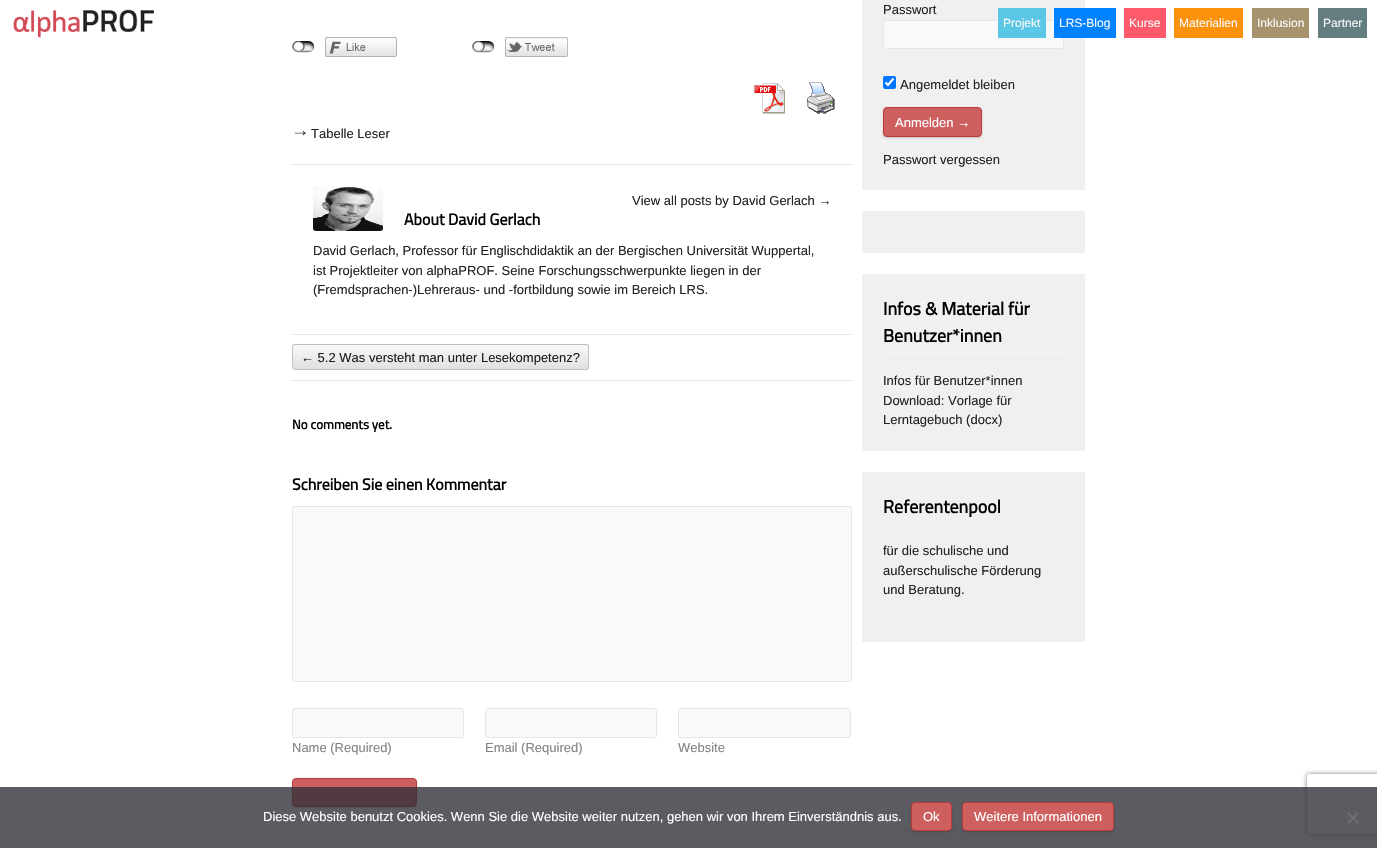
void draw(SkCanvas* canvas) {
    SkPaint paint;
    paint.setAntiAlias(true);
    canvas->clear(0xFFFFFFFF);
    canvas->drawImageRect(SkImages::DeferredFromEncodedData(SkData::MakeFromFileName("img1.png")), SkRect::MakeXYWH(292, 41, 23, 12), SkSamplingOptions());
    canvas->drawImageRect(SkImages::DeferredFromEncodedData(SkData::MakeFromFileName("img2.png")), SkRect::MakeXYWH(325, 37, 72, 20), SkSamplingOptions());
    canvas->drawImageRect(SkImages::DeferredFromEncodedData(SkData::MakeFromFileName("img1.png")), SkRect::MakeXYWH(472, 41, 23, 12), SkSamplingOptions());
    canvas->drawImageRect(SkImages::DeferredFromEncodedData(SkData::MakeFromFileName("img3.png")), SkRect::MakeXYWH(505, 37, 63, 20), SkSamplingOptions());
    canvas->drawImageRect(SkImages::DeferredFromEncodedData(SkData::MakeFromFileName("img4.png")), SkRect::MakeXYWH(754, 83, 31, 31), SkSamplingOptions());
    canvas->drawImageRect(SkImages::DeferredFromEncodedData(SkData::MakeFromFileName("img5.png")), SkRect::MakeXYWH(807, 82, 28, 32), SkSamplingOptions());
    canvas->drawImageRect(SkImages::DeferredFromEncodedData(SkData::MakeFromFileName("img6.png")), SkRect::MakeXYWH(294, 130, 13, 6), SkSamplingOptions());
    SkFont font1(fontMgr->matchFamilyStyle("Liberation Sans", SkFontStyle::Normal()), 13);
    font1.setSubpixel(true);
    paint.setColor(0xFF222222);
    canvas->drawString("Tabelle Leser", 311, 138, font1, paint);
    paint.setColor(0xFFE6E6E6);
    canvas->drawRect(SkRect::MakeXYWH(292, 164, 560, 1), paint);
    canvas->drawImageRect(SkImages::DeferredFromEncodedData(SkData::MakeFromFileName("img7.png")), SkRect::MakeXYWH(313, 186, 70, 45), SkSamplingOptions());
    paint.setColor(0xFF222222);
    canvas->drawString("View all posts by David Gerlach →", 632, 205, font1, paint);
    SkFont font2(fontMgr->matchFamilyStyle("Titillium Web", SkFontStyle::Bold()), 16);
    font2.setSubpixel(true);
    paint.setColor(0xFF020202);
    canvas->drawString("About David Gerlach", 404, 225, font2, paint);
    paint.setColor(0xFF222222);
    canvas->drawString("David Gerlach, Professor für Englischdidaktik an der Bergischen Universität Wuppertal,", 313, 255, font1, paint);
    canvas->drawString("ist Projektleiter von alphaPROF. Seine Forschungsschwerpunkte liegen in der", 313, 275, font1, paint);
    canvas->drawString("(Fremdsprachen-)Lehreraus- und -fortbildung sowie im Bereich LRS.", 313, 294, font1, paint);
    paint.setColor(0xFFE6E6E6);
    canvas->drawRect(SkRect::MakeXYWH(292, 334, 560, 1), paint);
    canvas->drawRect(SkRect::MakeXYWH(292, 380, 560, 1), paint);
    {
        const SkColor colors[] = {0xFFF9F9F9, 0xFFE0E0E0};
        const float stops[] = {0, 1};
        const SkPoint ends[] = {{304, 345}, {304, 369}};
        paint.setShader(SkGradientShader::MakeLinear(ends, colors, stops, 2, SkTileMode::kClamp));
        paint.setAlpha(255);
    }
    canvas->drawPath(SkPathBuilder().moveTo(295, 345).lineTo(314, 345).lineTo(314, 369).lineTo(295, 369).cubicTo(294, 369, 293, 368, 293, 367).lineTo(293, 347).cubicTo(293, 346, 294, 345, 295, 345).close().detach(), paint);
    paint.setShader(nullptr);
    paint.setColor(0xFFC0C0C0);
    canvas->drawPath(SkPathBuilder(SkPathFillType::kEvenOdd).moveTo(295, 344).lineTo(314, 344).lineTo(314, 370).lineTo(295, 370).cubicTo(293.5f, 370, 292, 368.5f, 292, 367).lineTo(292, 347).cubicTo(292, 345.5f, 293.5f, 344, 295, 344).close().moveTo(295, 345).lineTo(314, 345).lineTo(314, 369).lineTo(295, 369).cubicTo(294, 369, 293, 368, 293, 367).lineTo(293, 347).cubicTo(293, 346, 294, 345, 295, 345).close().detach(), paint);
    {
        const SkColor colors[] = {0xFFF9F9F9, 0xFFE0E0E0};
        const float stops[] = {0, 1};
        const SkPoint ends[] = {{451, 345}, {451, 369}};
        paint.setShader(SkGradientShader::MakeLinear(ends, colors, stops, 2, SkTileMode::kClamp));
        paint.setAlpha(255);
    }
    canvas->drawPath(SkPathBuilder().moveTo(314, 345).lineTo(586, 345).cubicTo(587, 345, 588, 346, 588, 347).lineTo(588, 367).cubicTo(588, 368, 587, 369, 586, 369).lineTo(314, 369).close().detach(), paint);
    paint.setShader(nullptr);
    paint.setColor(0xFFC0C0C0);
    canvas->drawPath(SkPathBuilder(SkPathFillType::kEvenOdd).moveTo(314, 344).lineTo(586, 344).cubicTo(588, 344, 589, 345, 589, 347).lineTo(589, 367).cubicTo(589, 369, 588, 370, 586, 370).lineTo(314, 370).close().moveTo(314, 345).lineTo(586, 345).cubicTo(587, 345, 588, 346, 588, 347).lineTo(588, 367).cubicTo(588, 368, 587, 369, 586, 369).lineTo(314, 369).close().detach(), paint);
    paint.setColor(0xFF1C1C1C);
    canvas->drawString("← 5.2 Was versteht man unter Lesekompetenz?", 301, 362, font1, paint);
    SkFont font3(fontMgr->matchFamilyStyle("Titillium Web", SkFontStyle::Bold()), 13);
    font3.setSubpixel(true);
    paint.setColor(0xFF020202);
    canvas->drawString("No comments yet.", 292, 429, font3, paint);
    canvas->drawString("Schreiben Sie einen Kommentar", 292, 490, font2, paint);
    paint.setColor(0xFFF9F9F9);
    canvas->drawRoundRect(SkRect::MakeXYWH(292.5f, 506.5f, 559, 175), 2.5f, 2.5f, paint);
    paint.setStyle(SkPaint::kStroke_Style);
    paint.setStrokeWidth(1);
    paint.setColor(0xFFE6E6E6);
    canvas->drawRoundRect(SkRect::MakeXYWH(292.5f, 506.5f, 559, 175), 2.5f, 2.5f, paint);
    paint.setStyle(SkPaint::kFill_Style);
    paint.setColor(0xFFF9F9F9);
    canvas->drawRoundRect(SkRect::MakeXYWH(292.5f, 708.5f, 171, 29), 2.5f, 2.5f, paint);
    paint.setStyle(SkPaint::kStroke_Style);
    paint.setColor(0xFFE6E6E6);
    canvas->drawRoundRect(SkRect::MakeXYWH(292.5f, 708.5f, 171, 29), 2.5f, 2.5f, paint);
    paint.setStyle(SkPaint::kFill_Style);
    paint.setColor(0xFF828282);
    canvas->drawString("Name (Required)", 292, 752, font1, paint);
    paint.setColor(0xFFF9F9F9);
    canvas->drawRoundRect(SkRect::MakeXYWH(485.5f, 708.5f, 171, 29), 2.5f, 2.5f, paint);
    paint.setStyle(SkPaint::kStroke_Style);
    paint.setColor(0xFFE6E6E6);
    canvas->drawRoundRect(SkRect::MakeXYWH(485.5f, 708.5f, 171, 29), 2.5f, 2.5f, paint);
    paint.setStyle(SkPaint::kFill_Style);
    paint.setColor(0xFF828282);
    canvas->drawString("Email (Required)", 485, 752, font1, paint);
    paint.setColor(0xFFF9F9F9);
    canvas->drawRoundRect(SkRect::MakeXYWH(678.5f, 708.5f, 172, 29), 2.5f, 2.5f, paint);
    paint.setStyle(SkPaint::kStroke_Style);
    paint.setColor(0xFFE6E6E6);
    canvas->drawRoundRect(SkRect::MakeXYWH(678.5f, 708.5f, 172, 29), 2.5f, 2.5f, paint);
    paint.setStyle(SkPaint::kFill_Style);
    paint.setColor(0xFF828282);
    canvas->drawString("Website", 678, 752, font1, paint);
    paint.setColor(0x33000000);
    paint.setMaskFilter(SkMaskFilter::MakeBlur(kNormal_SkBlurStyle, 1));
    canvas->drawRoundRect(SkRect::MakeXYWH(292, 779, 125, 29), 4, 4, paint);
    paint.setMaskFilter(nullptr);
    paint.setColor(0xFFCD5F5F);
    canvas->drawRoundRect(SkRect::MakeXYWH(292.5f, 778.5f, 124, 28), 3.5f, 3.5f, paint);
    paint.setStyle(SkPaint::kStroke_Style);
    paint.setColor(0xFFBE3B3B);
    canvas->drawRoundRect(SkRect::MakeXYWH(292.5f, 778.5f, 124, 28), 3.5f, 3.5f, paint);
    paint.setStyle(SkPaint::kFill_Style);
    paint.setColor(0xFFF0F0F0);
    canvas->drawRect(SkRect::MakeXYWH(862, 0, 223, 190), paint);
    paint.setColor(0xFF222222);
    canvas->drawString("Passwort", 883, 14, font1, paint);
    paint.setColor(0xFFF9F9F9);
    canvas->drawRoundRect(SkRect::MakeXYWH(883.5f, 20.5f, 180, 28), 2.5f, 2.5f, paint);
    paint.setStyle(SkPaint::kStroke_Style);
    paint.setColor(0xFFE6E6E6);
    canvas->drawRoundRect(SkRect::MakeXYWH(883.5f, 20.5f, 180, 28), 2.5f, 2.5f, paint);
    paint.setStyle(SkPaint::kFill_Style);
    paint.setColor(0xFF0075FF);
    canvas->drawRoundRect(SkRect::MakeXYWH(883, 76, 13, 13), 2, 2, paint);
    paint.setStyle(SkPaint::kStroke_Style);
    paint.setStrokeWidth(2.1f);
    paint.setColor(0xFFFFFFFF);
    canvas->drawPath(SkPathBuilder().moveTo(885.5f, 82.5f).lineTo(888, 85).lineTo(893.5f, 78.5f).detach(), paint);
    paint.setStyle(SkPaint::kFill_Style);
    paint.setColor(0xFF222222);
    canvas->drawString("Angemeldet bleiben", 900, 89, font1, paint);
    paint.setColor(0x33000000);
    paint.setMaskFilter(SkMaskFilter::MakeBlur(kNormal_SkBlurStyle, 1));
    canvas->drawRoundRect(SkRect::MakeXYWH(883, 108, 99, 30), 4, 4, paint);
    paint.setMaskFilter(nullptr);
    paint.setColor(0xFFCD5F5F);
    canvas->drawRoundRect(SkRect::MakeXYWH(883.5f, 107.5f, 98, 29), 3.5f, 3.5f, paint);
    paint.setStyle(SkPaint::kStroke_Style);
    paint.setStrokeWidth(1);
    paint.setColor(0xFFBE3B3B);
    canvas->drawRoundRect(SkRect::MakeXYWH(883.5f, 107.5f, 98, 29), 3.5f, 3.5f, paint);
    paint.setStyle(SkPaint::kFill_Style);
    paint.setColor(0xFFFFFFFF);
    canvas->drawString("Anmelden →", 895, 127, font1, paint);
    paint.setColor(0xFF222222);
    canvas->drawString("Passwort vergessen", 883, 164, font1, paint);
    paint.setColor(0xFFF0F0F0);
    canvas->drawRect(SkRect::MakeXYWH(862, 211, 223, 42), paint);
    canvas->drawRect(SkRect::MakeXYWH(862, 274, 223, 177), paint);
    paint.setStyle(SkPaint::kStroke_Style);
    paint.setColor(0xFFE6E6E6);
    paint.setPathEffect(SkDashPathEffect::Make({{1, 1}}, 0));
    canvas->drawPath(SkPathBuilder().moveTo(883, 359.5f).lineTo(1064, 359.5f).detach(), paint);
    paint.setPathEffect(nullptr);
    SkFont font4(fontMgr->matchFamilyStyle("Titillium Web", SkFontStyle::Bold()), 18);
    font4.setSubpixel(true);
    paint.setStyle(SkPaint::kFill_Style);
    paint.setColor(0xFF020202);
    canvas->drawString("Infos & Material für", 883, 315, font4, paint);
    canvas->drawString("Benutzer*innen", 883, 342, font4, paint);
    paint.setColor(0xFF222222);
    canvas->drawString("Infos für Benutzer*innen", 883, 385, font1, paint);
    canvas->drawString("Download: Vorlage für", 883, 405, font1, paint);
    canvas->drawString("Lerntagebuch (docx)", 883, 424, font1, paint);
    paint.setColor(0xFFF0F0F0);
    canvas->drawRect(SkRect::MakeXYWH(862, 472, 223, 170), paint);
    paint.setStyle(SkPaint::kStroke_Style);
    paint.setColor(0xFFE6E6E6);
    paint.setPathEffect(SkDashPathEffect::Make({{1, 1}}, 0));
    canvas->drawPath(SkPathBuilder().moveTo(883, 529.5f).lineTo(1064, 529.5f).detach(), paint);
    paint.setPathEffect(nullptr);
    paint.setStyle(SkPaint::kFill_Style);
    paint.setColor(0xFF020202);
    canvas->drawString("Referentenpool", 883, 513, font4, paint);
    paint.setColor(0xFF222222);
    canvas->drawString("für die schulische und", 883, 555, font1, paint);
    canvas->drawString("außerschulische Förderung", 883, 575, font1, paint);
    canvas->drawString("und Beratung.", 883, 594, font1, paint);
    paint.setColor(0xFFF9F9F9);
    canvas->drawRect(SkRect::MakeXYWH(0, 828, 1377, 20), paint);
    paint.setStyle(SkPaint::kStroke_Style);
    paint.setColor(0xFFE6E6E6);
    paint.setPathEffect(SkDashPathEffect::Make({{1, 1}}, 0));
    canvas->drawPath(SkPathBuilder().moveTo(0, 828.5f).lineTo(1377, 828.5f).detach(), paint);
    paint.setPathEffect(nullptr);
    canvas->drawImageRect(SkImages::DeferredFromEncodedData(SkData::MakeFromFileName("img8.png")), SkRect::MakeXYWH(13, 9, 141, 29), SkSamplingOptions());
    paint.setStyle(SkPaint::kFill_Style);
    paint.setColor(0xFF5AC7E6);
    canvas->drawRect(SkRect::MakeXYWH(998, 8, 48, 30), paint);
    SkFont font5(fontMgr->matchFamilyStyle("Liberation Sans", SkFontStyle::Normal()), 12);
    font5.setSubpixel(true);
    paint.setColor(0xFFF9F9F9);
    canvas->drawString("Projekt", 1003, 27, font5, paint);
    paint.setColor(0xFF0081FF);
    canvas->drawRect(SkRect::MakeXYWH(1054, 8, 62, 30), paint);
    paint.setColor(0xFFF9F9F9);
    canvas->drawString("LRS-Blog", 1059, 27, font5, paint);
    paint.setColor(0xFFFF5A6A);
    canvas->drawRect(SkRect::MakeXYWH(1124, 8, 42, 30), paint);
    paint.setColor(0xFFF9F9F9);
    canvas->drawString("Kurse", 1129, 27, font5, paint);
    paint.setColor(0xFFFC920B);
    canvas->drawRect(SkRect::MakeXYWH(1174, 8, 69, 30), paint);
    paint.setColor(0xFFF9F9F9);
    canvas->drawString("Materialien", 1179, 27, font5, paint);
    paint.setColor(0xFFA6926D);
    canvas->drawRect(SkRect::MakeXYWH(1252, 8, 57, 30), paint);
    paint.setColor(0xFFF9F9F9);
    canvas->drawString("Inklusion", 1257, 27, font5, paint);
    paint.setColor(0xFF647E7F);
    canvas->drawRect(SkRect::MakeXYWH(1318, 8, 49, 30), paint);
    paint.setColor(0xFFF9F9F9);
    canvas->drawString("Partner", 1323, 27, font5, paint);
    canvas->save();
    canvas->clipPath(SkPathBuilder(SkPathFillType::kEvenOdd).moveTo(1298, 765).lineTo(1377, 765).lineTo(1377, 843).lineTo(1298, 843).close().moveTo(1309, 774).lineTo(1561, 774).cubicTo(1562, 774, 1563, 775, 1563, 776).lineTo(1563, 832).cubicTo(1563, 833, 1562, 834, 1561, 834).lineTo(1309, 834).cubicTo(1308, 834, 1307, 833, 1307, 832).lineTo(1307, 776).cubicTo(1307, 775, 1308, 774, 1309, 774).close().detach(), true);
    paint.setColor(0xFF808080);
    paint.setMaskFilter(SkMaskFilter::MakeBlur(kNormal_SkBlurStyle, 2.5f));
    canvas->drawRoundRect(SkRect::MakeXYWH(1307, 774, 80, 60), 2, 2, paint);
    paint.setMaskFilter(nullptr);
    canvas->restore();
    paint.setColor(0xCC32323A);
    canvas->drawRect(SkRect::MakeXYWH(0, 787, 1377, 61), paint);
    paint.setColor(0xFFFFFFFF);
    canvas->drawString("Diese Website benutzt Cookies. Wenn Sie die Website weiter nutzen, gehen wir von Ihrem Einverständnis aus.", 263, 821, font1, paint);
    paint.setColor(0x33000000);
    paint.setMaskFilter(SkMaskFilter::MakeBlur(kNormal_SkBlurStyle, 1));
    canvas->drawRoundRect(SkRect::MakeXYWH(911, 803, 41, 29), 4, 4, paint);
    paint.setMaskFilter(nullptr);
    paint.setColor(0xFFCD5F5F);
    canvas->drawRoundRect(SkRect::MakeXYWH(911.5f, 802.5f, 40, 28), 3.5f, 3.5f, paint);
    paint.setStyle(SkPaint::kStroke_Style);
    paint.setColor(0xFFBE3B3B);
    canvas->drawRoundRect(SkRect::MakeXYWH(911.5f, 802.5f, 40, 28), 3.5f, 3.5f, paint);
    paint.setStyle(SkPaint::kFill_Style);
    paint.setColor(0xFFFFFFFF);
    canvas->drawString("Ok", 923, 821, font1, paint);
    paint.setColor(0x33000000);
    paint.setMaskFilter(SkMaskFilter::MakeBlur(kNormal_SkBlurStyle, 1));
    canvas->drawRoundRect(SkRect::MakeXYWH(962, 803, 152, 29), 4, 4, paint);
    paint.setMaskFilter(nullptr);
    paint.setColor(0xFFCD5F5F);
    canvas->drawRoundRect(SkRect::MakeXYWH(962.5f, 802.5f, 151, 28), 3.5f, 3.5f, paint);
    paint.setStyle(SkPaint::kStroke_Style);
    paint.setColor(0xFFBE3B3B);
    canvas->drawRoundRect(SkRect::MakeXYWH(962.5f, 802.5f, 151, 28), 3.5f, 3.5f, paint);
    paint.setStyle(SkPaint::kFill_Style);
    paint.setColor(0xFFFFFFFF);
    canvas->drawString("Weitere Informationen", 974, 821, font1, paint);
    paint.setColor(0xFF6E6E71);
    canvas->drawPath(SkPathBuilder().moveTo(1357.5f, 812).lineTo(1359, 813.5f).lineTo(1348.5f, 824).lineTo(1347, 822.5f).close().detach(), paint);
    canvas->drawPath(SkPathBuilder().moveTo(1347, 813.5f).lineTo(1348.5f, 812).lineTo(1359, 822.5f).lineTo(1357.5f, 824).close().detach(), paint);
}
